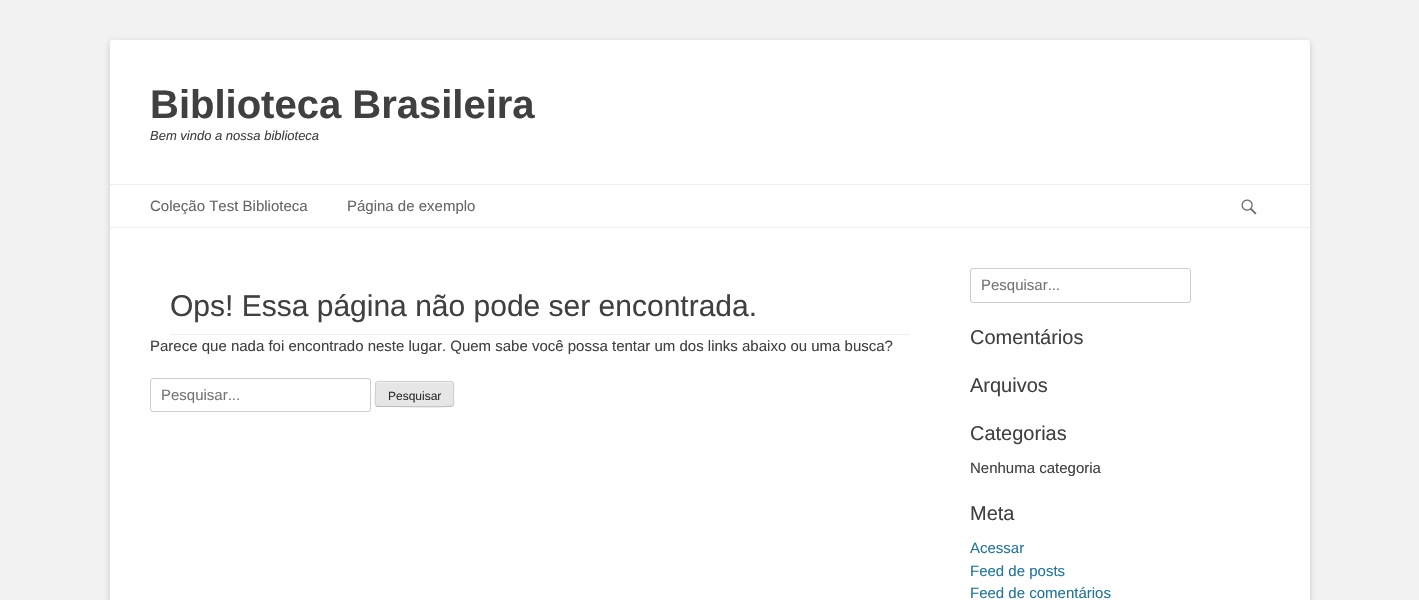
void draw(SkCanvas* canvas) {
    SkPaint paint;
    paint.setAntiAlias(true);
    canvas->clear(0xFFF2F2F2);
    paint.setColor(0x4D646464);
    paint.setMaskFilter(SkMaskFilter::MakeBlur(kNormal_SkBlurStyle, 3));
    canvas->drawRoundRect(SkRect::MakeXYWH(110, 42, 1200, 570), 3, 3, paint);
    paint.setMaskFilter(nullptr);
    paint.setColor(0xFFFFFFFF);
    canvas->drawRoundRect(SkRect::MakeXYWH(110, 40, 1200, 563), 3, 3, paint);
    SkFont font1(fontMgr->matchFamilyStyle("Liberation Sans", SkFontStyle::Bold()), 40);
    font1.setSubpixel(true);
    paint.setColor(0xFF404040);
    canvas->drawString("Biblioteca Brasileira", 150, 118, font1, paint);
    SkFont font2(fontMgr->matchFamilyStyle("Liberation Sans", SkFontStyle::Italic()), 13);
    font2.setSubpixel(true);
    canvas->drawString("Bem vindo a nossa biblioteca", 150, 140, font2, paint);
    paint.setColor(0xFFEEEEEE);
    canvas->drawRect(SkRect::MakeXYWH(110, 184, 1200, 1), paint);
    canvas->drawRect(SkRect::MakeXYWH(110, 227, 1200, 1), paint);
    SkFont font3(fontMgr->matchFamilyStyle("Liberation Sans", SkFontStyle::Normal()), 15);
    font3.setSubpixel(true);
    paint.setColor(0xFF666666);
    canvas->drawString("Coleção Test Biblioteca", 150, 211, font3, paint);
    canvas->drawString("Página de exemplo", 347, 211, font3, paint);
    canvas->drawImageRect(SkImages::DeferredFromEncodedData(SkData::MakeFromFileName("img1.png")), SkRect::MakeXYWH(1241, 199, 16, 16), SkSamplingOptions());
    paint.setColor(0xFFEEEEEE);
    canvas->drawRect(SkRect::MakeXYWH(170, 334, 740, 1), paint);
    SkFont font4(fontMgr->matchFamilyStyle("Liberation Sans", SkFontStyle::Normal()), 30);
    font4.setSubpixel(true);
    paint.setColor(0xFF404040);
    canvas->drawString("Ops! Essa página não pode ser encontrada.", 170, 316, font4, paint);
    canvas->drawString("Parece que nada foi encontrado neste lugar. Quem sabe você possa tentar um dos links abaixo ou uma busca?", 150, 351, font3, paint);
    paint.setStyle(SkPaint::kStroke_Style);
    paint.setStrokeWidth(1);
    paint.setColor(0xFFCCCCCC);
    canvas->drawRoundRect(SkRect::MakeXYWH(150.5f, 378.5f, 220, 33), 2.5f, 2.5f, paint);
    paint.setStyle(SkPaint::kFill_Style);
    paint.setColor(0xFF757575);
    canvas->drawString("Pesquisar...", 161, 400, font3, paint);
    paint.setColor(0xFFE6E6E6);
    canvas->drawRoundRect(SkRect::MakeXYWH(375, 381, 79, 26), 3, 3, paint);
    paint.setColor(0xFFF3F3F3);
    canvas->drawPath(SkPathBuilder().moveTo(378, 383).lineTo(451, 383).cubicTo(452, 383, 453, 384, 453, 385).cubicTo(453, 379, 442, 382, 439, 382).lineTo(390, 382).cubicTo(387, 382, 376, 379, 376, 385).cubicTo(376, 384, 377, 383, 378, 383).close().detach(), paint);
    paint.setStyle(SkPaint::kStroke_Style);
    paint.setColor(0xFFBBBBBB);
    canvas->drawPath(SkPathBuilder().moveTo(453, 406).lineTo(452.5f, 406).cubicTo(450.5f, 407.5f, 397, 406.5f, 390, 406.5f).lineTo(378, 406.5f).lineTo(376, 406).detach(), paint);
    paint.setColor(0xFFCCCCCC);
    canvas->drawPath(SkPathBuilder().moveTo(376, 406).cubicTo(374.5f, 404, 375.5f, 396.5f, 375.5f, 394).cubicTo(375.5f, 378.5f, 373.5f, 381.5f, 390, 381.5f).lineTo(439, 381.5f).cubicTo(457, 381.5f, 453.5f, 379, 453.5f, 397.5f).cubicTo(453.5f, 399.5f, 454.5f, 404, 453, 406).detach(), paint);
    SkFont font5(fontMgr->matchFamilyStyle("Liberation Sans", SkFontStyle::Normal()), 12);
    font5.setSubpixel(true);
    paint.setStyle(SkPaint::kFill_Style);
    paint.setColor(0xFF2E2E2E);
    canvas->drawString("Pesquisar", 388, 400, font5, paint);
    paint.setStyle(SkPaint::kStroke_Style);
    paint.setColor(0xFFCCCCCC);
    canvas->drawRoundRect(SkRect::MakeXYWH(970.5f, 268.5f, 220, 34), 2.5f, 2.5f, paint);
    paint.setStyle(SkPaint::kFill_Style);
    paint.setColor(0xFF757575);
    canvas->drawString("Pesquisar...", 981, 290, font3, paint);
    SkFont font6(fontMgr->matchFamilyStyle("Liberation Sans", SkFontStyle::Normal()), 20);
    font6.setSubpixel(true);
    paint.setColor(0xFF404040);
    canvas->drawString("Comentários", 970, 344, font6, paint);
    canvas->drawString("Arquivos", 970, 392, font6, paint);
    canvas->drawString("Categorias", 970, 440, font6, paint);
    canvas->drawString("Nenhuma categoria", 970, 473, font3, paint);
    canvas->drawString("Meta", 970, 520, font6, paint);
    paint.setColor(0xFF21759B);
    canvas->drawString("Acessar", 970, 553, font3, paint);
    canvas->drawString("Feed de posts", 970, 576, font3, paint);
    canvas->drawString("Feed de comentários", 970, 598, font3, paint);
}
